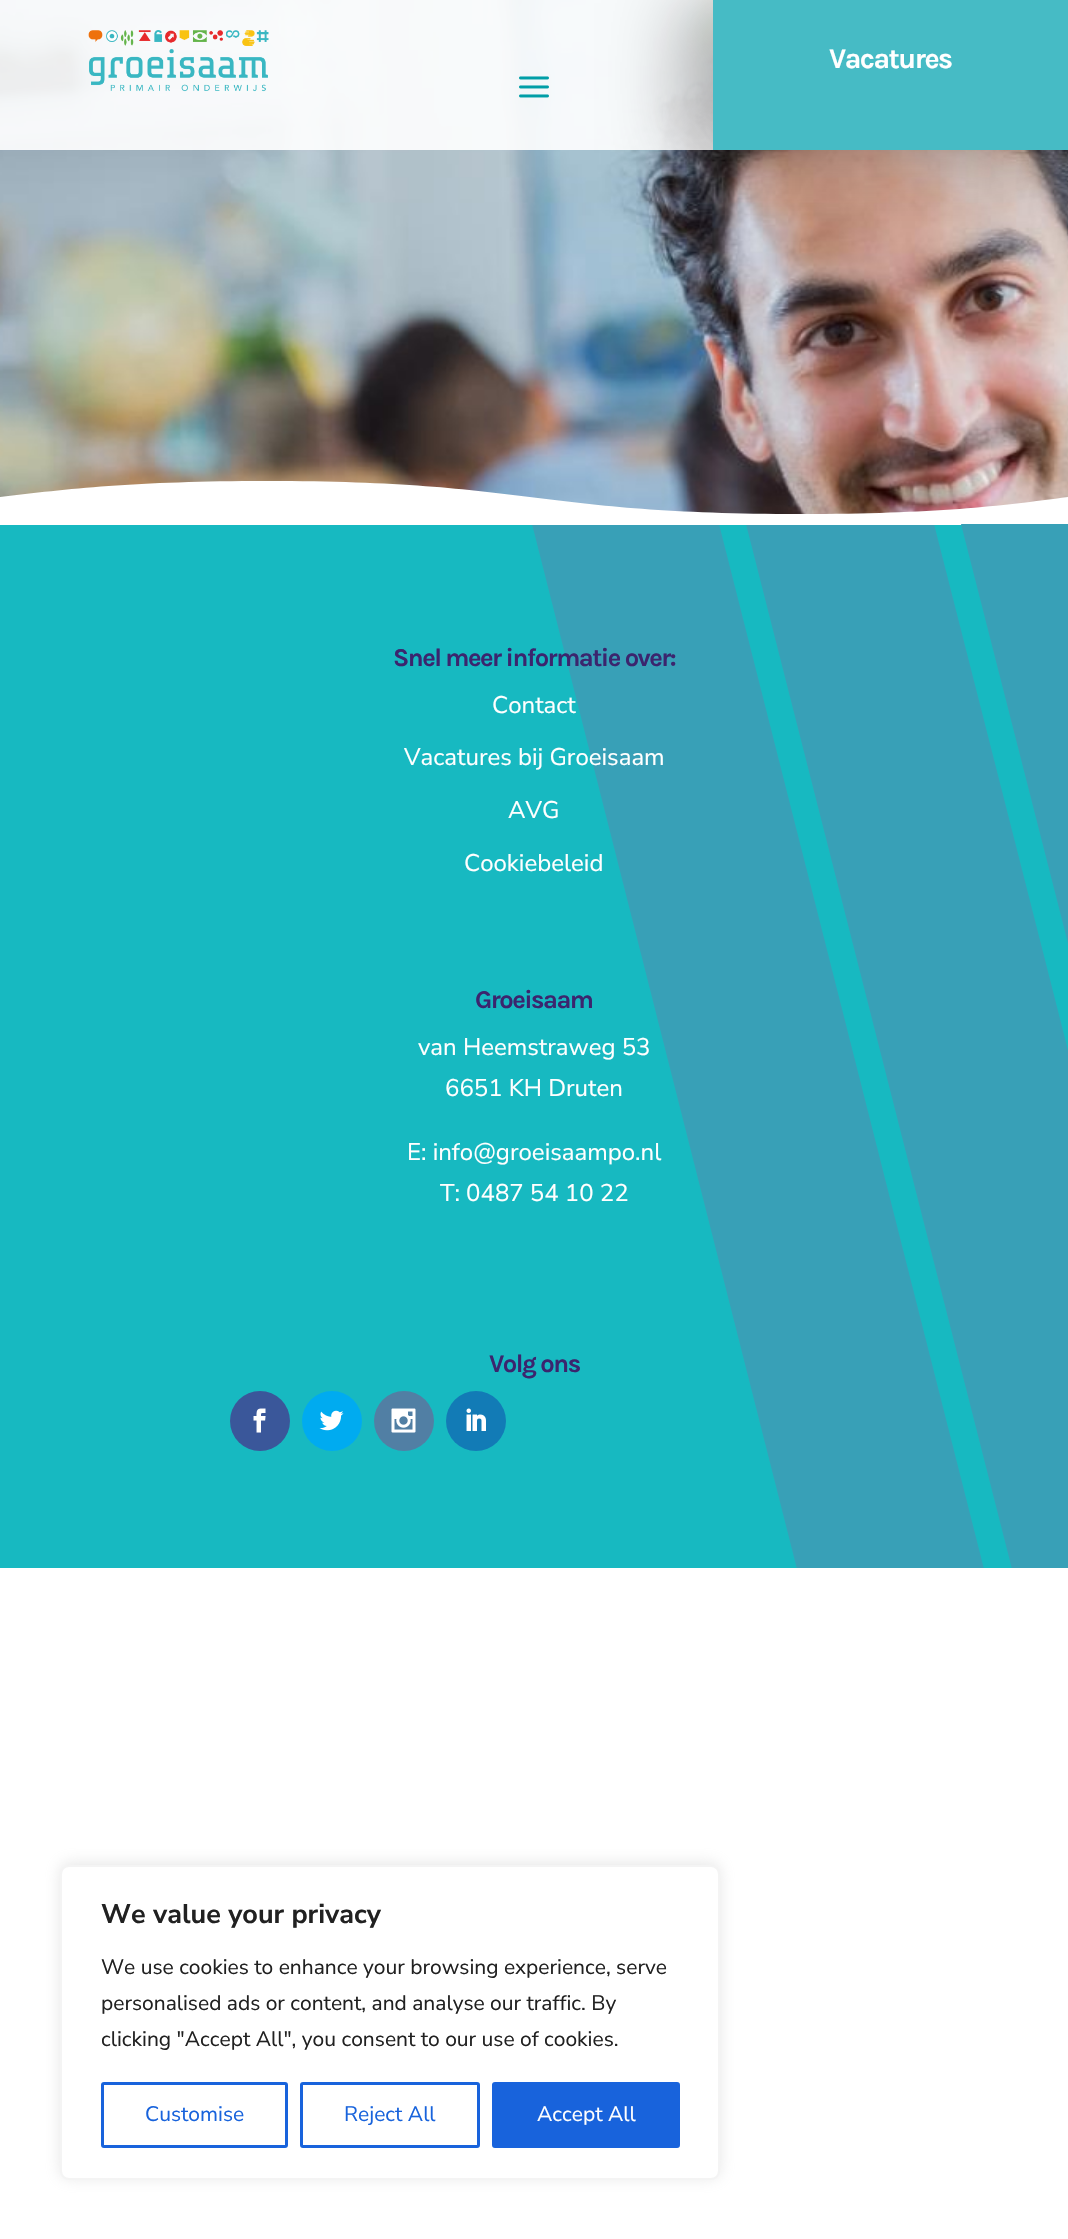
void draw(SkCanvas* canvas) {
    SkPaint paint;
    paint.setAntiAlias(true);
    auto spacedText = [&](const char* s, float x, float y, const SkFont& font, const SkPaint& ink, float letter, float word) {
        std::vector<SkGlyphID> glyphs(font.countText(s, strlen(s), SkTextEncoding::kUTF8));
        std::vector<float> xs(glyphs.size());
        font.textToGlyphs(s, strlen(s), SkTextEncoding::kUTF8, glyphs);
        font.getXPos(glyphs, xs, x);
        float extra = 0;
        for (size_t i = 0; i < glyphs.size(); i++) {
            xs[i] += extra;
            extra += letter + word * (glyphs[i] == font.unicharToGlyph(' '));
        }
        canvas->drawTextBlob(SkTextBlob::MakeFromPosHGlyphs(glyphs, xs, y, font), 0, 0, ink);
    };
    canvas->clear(0xFFFFFFFF);
    canvas->drawImageRect(SkImages::DeferredFromEncodedData(SkData::MakeFromFileName("img1.png")), SkRect::MakeXYWH(0, 0, 1068, 514), SkSamplingOptions());
    paint.setColor(0xE6FFFFFF);
    canvas->drawRect(SkRect::MakeXYWH(0, 0, 713, 150), paint);
    canvas->drawImageRect(SkImages::DeferredFromEncodedData(SkData::MakeFromFileName("img2.png")), SkRect::MakeXYWH(88, 30, 181, 62), SkSamplingOptions());
    paint.setColor(0x4D000000);
    paint.setMaskFilter(SkMaskFilter::MakeBlur(kNormal_SkBlurStyle, 37.5f));
    canvas->drawRect(SkRect::MakeXYWH(683, 3, 355, 150), paint);
    paint.setMaskFilter(nullptr);
    paint.setColor(0xFF46BBC5);
    canvas->drawRect(SkRect::MakeXYWH(713, 0, 355, 150), paint);
    SkFont font1(fontMgr->matchFamilyStyle("Karla", SkFontStyle::Bold()), 28.5f);
    font1.setSubpixel(true);
    paint.setColor(0xFFFFFFFF);
    spacedText("Vacatures", 829, 68, font1, paint, -1.5f, 0);
    canvas->drawImageRect(SkImages::DeferredFromEncodedData(SkData::MakeFromFileName("img3.png")), SkRect::MakeXYWH(519, 76, 30, 22), SkSamplingOptions());
    canvas->drawPath(SkPathBuilder().moveTo(267, 481).cubicTo(534, 481, 534, 514, 801, 514).cubicTo(935, 514, 1001, 506, 1068, 497).lineTo(1068, 525).lineTo(0, 525).lineTo(0, 497).cubicTo(67, 489, 134, 481, 267, 481).close().detach(), paint);
    paint.setColor(0xFF17B9C1);
    canvas->drawRect(SkRect::MakeXYWH(0, 525, 1068, 1043), paint);
    canvas->save();
    canvas->clipRect(SkRect::MakeXYWH(0, 525, 1068, 1043));
    paint.setColor(0xFF38A0B7);
    canvas->drawPath(SkPathBuilder().moveTo(532, 524).lineTo(797, 1569).lineTo(984, 1569).lineTo(719, 524).close().detach(), paint);
    canvas->drawPath(SkPathBuilder().moveTo(746, 524).lineTo(1012, 1569).lineTo(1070, 1569).lineTo(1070, 1058).lineTo(934, 524).close().detach(), paint);
    canvas->restore();
    canvas->drawPath(SkPathBuilder().moveTo(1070, 524).lineTo(961, 524).lineTo(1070, 951).close().detach(), paint);
    SkFont font2(fontMgr->matchFamilyStyle("Karla", SkFontStyle::Bold()), 25.5f);
    font2.setSubpixel(true);
    paint.setColor(0xFF3B256E);
    spacedText("Snel meer informatie over:", 393, 666, font2, paint, -1.5f, 0);
    SkFont font3(fontMgr->matchFamilyStyle("Nunito Sans", SkFontStyle(200, SkFontStyle::kNormal_Width, SkFontStyle::kUpright_Slant)), 24);
    font3.setSubpixel(true);
    paint.setColor(0xFFFFFFFF);
    canvas->drawString("Contact", 492, 713, font3, paint);
    canvas->drawString("Vacatures bij Groeisaam", 404, 765, font3, paint);
    canvas->drawString("AVG", 508, 818, font3, paint);
    canvas->drawString("Cookiebeleid", 464, 871, font3, paint);
    paint.setColor(0xFF3B256E);
    spacedText("Groeisaam", 475, 1008, font2, paint, -1.5f, 0);
    paint.setColor(0xFFFFFFFF);
    canvas->drawString("van Heemstraweg 53", 418, 1055, font3, paint);
    canvas->drawString("6651 KH Druten", 445, 1096, font3, paint);
    canvas->drawString("E: info@groeisaampo.nl", 407, 1160, font3, paint);
    canvas->drawString("T: 0487 54 10 22", 440, 1201, font3, paint);
    paint.setColor(0xFF3B256E);
    spacedText("Volg ons", 489, 1372, font2, paint, -1.5f, 0);
    paint.setColor(0xFF3A579A);
    canvas->drawCircle(260, 1421, 30, paint);
    canvas->drawImageRect(SkImages::DeferredFromEncodedData(SkData::MakeFromFileName("img4.png")), SkRect::MakeXYWH(253, 1408, 13, 25), SkSamplingOptions());
    paint.setColor(0xFF00ABF0);
    canvas->drawCircle(332, 1421, 30, paint);
    canvas->drawImageRect(SkImages::DeferredFromEncodedData(SkData::MakeFromFileName("img5.png")), SkRect::MakeXYWH(319, 1410, 25, 21), SkSamplingOptions());
    paint.setColor(0xFF517FA4);
    canvas->drawCircle(404, 1421, 30, paint);
    canvas->drawImageRect(SkImages::DeferredFromEncodedData(SkData::MakeFromFileName("img6.png")), SkRect::MakeXYWH(391, 1408, 25, 25), SkSamplingOptions());
    paint.setColor(0xFF127BB6);
    canvas->drawCircle(476, 1421, 30, paint);
    canvas->drawImageRect(SkImages::DeferredFromEncodedData(SkData::MakeFromFileName("img7.png")), SkRect::MakeXYWH(466, 1408, 20, 23), SkSamplingOptions());
    paint.setColor(0x4DACABAB);
    paint.setMaskFilter(SkMaskFilter::MakeBlur(kNormal_SkBlurStyle, 7.5f));
    canvas->drawRoundRect(SkRect::MakeXYWH(60, 1863, 660, 315), 9, 9, paint);
    paint.setMaskFilter(nullptr);
    paint.setColor(0xFFFFFFFF);
    canvas->drawRoundRect(SkRect::MakeXYWH(61, 1866, 658, 313), 8, 8, paint);
    paint.setStyle(SkPaint::kStroke_Style);
    paint.setStrokeWidth(2);
    paint.setColor(0xFFF4F4F4);
    canvas->drawRoundRect(SkRect::MakeXYWH(61, 1866, 658, 313), 8, 8, paint);
    SkFont font4(fontMgr->matchFamilyStyle("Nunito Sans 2", SkFontStyle(200, SkFontStyle::kNormal_Width, SkFontStyle::kUpright_Slant)), 27);
    font4.setSubpixel(true);
    paint.setStyle(SkPaint::kFill_Style);
    paint.setColor(0xFF212121);
    canvas->drawString("We value your privacy", 101, 1923, font4, paint);
    SkFont font5(fontMgr->matchFamilyStyle("Nunito Sans", SkFontStyle(200, SkFontStyle::kNormal_Width, SkFontStyle::kUpright_Slant)), 21);
    font5.setSubpixel(true);
    canvas->drawString("We use cookies to enhance your browsing experience, serve", 101, 1974, font5, paint);
    canvas->drawString("personalised ads or content, and analyse our traffic. By", 101, 2010, font5, paint);
    canvas->drawString("clicking \"Accept All\", you consent to our use of cookies.", 101, 2046, font5, paint);
    paint.setStyle(SkPaint::kStroke_Style);
    paint.setStrokeWidth(3);
    paint.setColor(0xFF1863DC);
    canvas->drawRoundRect(SkRect::MakeXYWH(102.5f, 2083.5f, 184, 63), 1.5f, 1.5f, paint);
    paint.setStyle(SkPaint::kFill_Style);
    canvas->drawString("Customise", 145, 2121, font5, paint);
    paint.setStyle(SkPaint::kStroke_Style);
    canvas->drawRoundRect(SkRect::MakeXYWH(301.5f, 2083.5f, 177, 63), 1.5f, 1.5f, paint);
    paint.setStyle(SkPaint::kFill_Style);
    canvas->drawString("Reject All", 344, 2121, font5, paint);
    canvas->drawRoundRect(SkRect::MakeXYWH(493.5f, 2083.5f, 185, 63), 1.5f, 1.5f, paint);
    paint.setStyle(SkPaint::kStroke_Style);
    canvas->drawRoundRect(SkRect::MakeXYWH(493.5f, 2083.5f, 185, 63), 1.5f, 1.5f, paint);
    paint.setStyle(SkPaint::kFill_Style);
    paint.setColor(0xFFFFFFFF);
    canvas->drawString("Accept All", 537, 2121, font5, paint);
}
